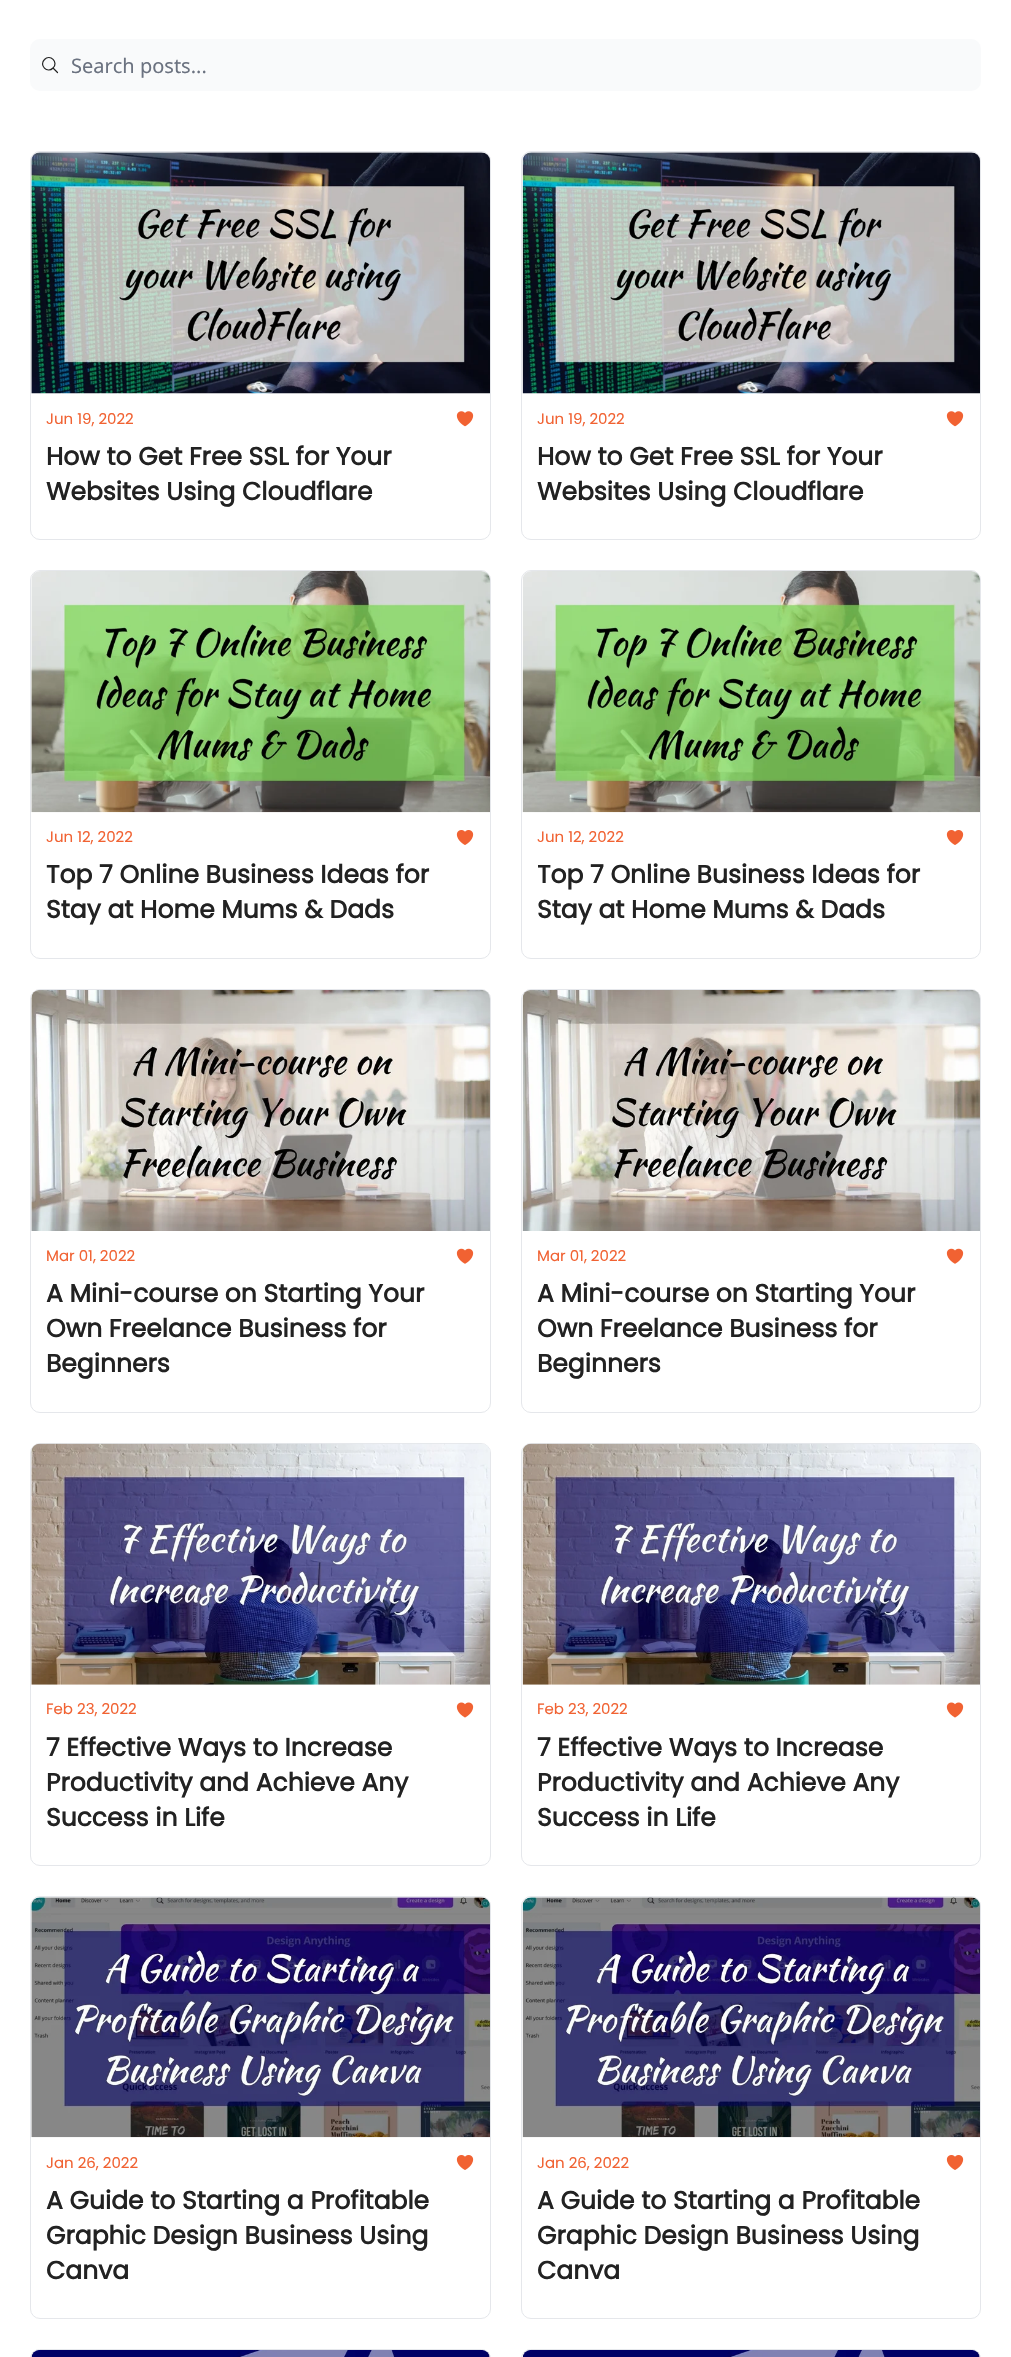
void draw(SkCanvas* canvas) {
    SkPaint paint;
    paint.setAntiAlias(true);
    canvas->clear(0xFFFFFFFF);
    paint.setColor(0xFFF9FAFB);
    canvas->drawRoundRect(SkRect::MakeXYWH(30, 39, 951, 52), 10, 10, paint);
    paint.setStyle(SkPaint::kStroke_Style);
    paint.setStrokeWidth(1.2f);
    paint.setStrokeCap(SkPaint::kRound_Cap);
    paint.setStrokeJoin(SkPaint::kRound_Join);
    paint.setColor(0xFF222222);
    canvas->drawPath(SkPathBuilder().moveTo(57.5f, 72.5f).lineTo(53, 68).moveTo(53, 68).cubicTo(59, 62.5f, 50, 53.5f, 44.5f, 59.5f).cubicTo(38.5f, 65, 47.5f, 74, 53, 68).close().detach(), paint);
    SkFont font1(fontMgr->matchFamilyStyle("Noto Sans", SkFontStyle::Normal()), 20);
    font1.setSubpixel(true);
    paint.setStyle(SkPaint::kFill_Style);
    paint.setColor(0xFF6B7280);
    canvas->drawString("Search posts...", 71, 73, font1, paint);
    paint.setStyle(SkPaint::kStroke_Style);
    paint.setStrokeWidth(1);
    paint.setStrokeCap(SkPaint::kButt_Cap);
    paint.setStrokeJoin(SkPaint::kMiter_Join);
    paint.setColor(0xFFE5E7EB);
    canvas->drawRoundRect(SkRect::MakeXYWH(30.5f, 151.5f, 460, 388), 9.5f, 9.5f, paint);
    canvas->drawImageRect(SkImages::DeferredFromEncodedData(SkData::MakeFromFileName("img1.png")), SkRect::MakeXYWH(31, 152, 459, 242), SkSamplingOptions());
    SkFont font2(fontMgr->matchFamilyStyle("Poppins", SkFontStyle::Normal()), 15);
    font2.setSubpixel(true);
    paint.setStyle(SkPaint::kFill_Style);
    paint.setColor(0xFFF16232);
    canvas->drawString("Jun 19, 2022", 46, 424, font2, paint);
    canvas->drawImageRect(SkImages::DeferredFromEncodedData(SkData::MakeFromFileName("img2.png")), SkRect::MakeXYWH(456, 411, 18, 16), SkSamplingOptions());
    SkFont font3(fontMgr->matchFamilyStyle("Poppins", SkFontStyle::Bold()), 25);
    font3.setSubpixel(true);
    paint.setColor(0xFF222222);
    canvas->drawString("How to Get Free SSL for Your", 46, 465, font3, paint);
    canvas->drawString("Websites Using Cloudflare", 46, 500, font3, paint);
    paint.setStyle(SkPaint::kStroke_Style);
    paint.setColor(0xFFE5E7EB);
    canvas->drawRoundRect(SkRect::MakeXYWH(521.5f, 151.5f, 459, 388), 9.5f, 9.5f, paint);
    canvas->drawImageRect(SkImages::DeferredFromEncodedData(SkData::MakeFromFileName("img3.png")), SkRect::MakeXYWH(522, 152, 458, 242), SkSamplingOptions());
    paint.setStyle(SkPaint::kFill_Style);
    paint.setColor(0xFFF16232);
    canvas->drawString("Jun 19, 2022", 537, 424, font2, paint);
    canvas->drawImageRect(SkImages::DeferredFromEncodedData(SkData::MakeFromFileName("img2.png")), SkRect::MakeXYWH(946, 411, 18, 16), SkSamplingOptions());
    paint.setColor(0xFF222222);
    canvas->drawString("How to Get Free SSL for Your", 537, 465, font3, paint);
    canvas->drawString("Websites Using Cloudflare", 537, 500, font3, paint);
    paint.setStyle(SkPaint::kStroke_Style);
    paint.setColor(0xFFE5E7EB);
    canvas->drawRoundRect(SkRect::MakeXYWH(30.5f, 570.5f, 460, 388), 9.5f, 9.5f, paint);
    canvas->drawImageRect(SkImages::DeferredFromEncodedData(SkData::MakeFromFileName("img4.png")), SkRect::MakeXYWH(31, 571, 459, 242), SkSamplingOptions());
    paint.setStyle(SkPaint::kFill_Style);
    paint.setColor(0xFFF16232);
    canvas->drawString("Jun 12, 2022", 46, 842, font2, paint);
    canvas->drawImageRect(SkImages::DeferredFromEncodedData(SkData::MakeFromFileName("img5.png")), SkRect::MakeXYWH(456, 830, 18, 15), SkSamplingOptions());
    paint.setColor(0xFF222222);
    canvas->drawString("Top 7 Online Business Ideas for", 46, 883, font3, paint);
    canvas->drawString("Stay at Home Mums & Dads", 46, 918, font3, paint);
    paint.setStyle(SkPaint::kStroke_Style);
    paint.setColor(0xFFE5E7EB);
    canvas->drawRoundRect(SkRect::MakeXYWH(521.5f, 570.5f, 459, 388), 9.5f, 9.5f, paint);
    canvas->drawImageRect(SkImages::DeferredFromEncodedData(SkData::MakeFromFileName("img6.png")), SkRect::MakeXYWH(522, 571, 458, 242), SkSamplingOptions());
    paint.setStyle(SkPaint::kFill_Style);
    paint.setColor(0xFFF16232);
    canvas->drawString("Jun 12, 2022", 537, 842, font2, paint);
    canvas->drawImageRect(SkImages::DeferredFromEncodedData(SkData::MakeFromFileName("img5.png")), SkRect::MakeXYWH(946, 830, 18, 15), SkSamplingOptions());
    canvas->save();
    canvas->clipRect(SkRect::MakeXYWH(538, 858, 427, 70));
    paint.setColor(0xFF222222);
    canvas->drawString("Top 7 Online Business Ideas for", 537, 883, font3, paint);
    canvas->restore();
    canvas->drawString("Stay at Home Mums & Dads", 537, 918, font3, paint);
    paint.setStyle(SkPaint::kStroke_Style);
    paint.setColor(0xFFE5E7EB);
    canvas->drawRoundRect(SkRect::MakeXYWH(30.5f, 989.5f, 460, 423), 9.5f, 9.5f, paint);
    canvas->drawImageRect(SkImages::DeferredFromEncodedData(SkData::MakeFromFileName("img7.png")), SkRect::MakeXYWH(31, 990, 459, 241), SkSamplingOptions());
    paint.setStyle(SkPaint::kFill_Style);
    paint.setColor(0xFFF16232);
    canvas->drawString("Mar 01, 2022", 46, 1261, font2, paint);
    canvas->drawImageRect(SkImages::DeferredFromEncodedData(SkData::MakeFromFileName("img8.png")), SkRect::MakeXYWH(456, 1248, 18, 16), SkSamplingOptions());
    paint.setColor(0xFF222222);
    canvas->drawString("A Mini-course on Starting Your", 46, 1302, font3, paint);
    canvas->drawString("Own Freelance Business for", 46, 1337, font3, paint);
    canvas->drawString("Beginners", 46, 1372, font3, paint);
    paint.setStyle(SkPaint::kStroke_Style);
    paint.setColor(0xFFE5E7EB);
    canvas->drawRoundRect(SkRect::MakeXYWH(521.5f, 989.5f, 459, 423), 9.5f, 9.5f, paint);
    canvas->drawImageRect(SkImages::DeferredFromEncodedData(SkData::MakeFromFileName("img9.png")), SkRect::MakeXYWH(522, 990, 458, 241), SkSamplingOptions());
    paint.setStyle(SkPaint::kFill_Style);
    paint.setColor(0xFFF16232);
    canvas->drawString("Mar 01, 2022", 537, 1261, font2, paint);
    canvas->drawImageRect(SkImages::DeferredFromEncodedData(SkData::MakeFromFileName("img8.png")), SkRect::MakeXYWH(946, 1248, 18, 16), SkSamplingOptions());
    paint.setColor(0xFF222222);
    canvas->drawString("A Mini-course on Starting Your", 537, 1302, font3, paint);
    canvas->drawString("Own Freelance Business for", 537, 1337, font3, paint);
    canvas->drawString("Beginners", 537, 1372, font3, paint);
    paint.setStyle(SkPaint::kStroke_Style);
    paint.setColor(0xFFE5E7EB);
    canvas->drawRoundRect(SkRect::MakeXYWH(30.5f, 1443.5f, 460, 422), 9.5f, 9.5f, paint);
    canvas->drawImageRect(SkImages::DeferredFromEncodedData(SkData::MakeFromFileName("img10.png")), SkRect::MakeXYWH(31, 1443, 459, 242), SkSamplingOptions());
    paint.setStyle(SkPaint::kFill_Style);
    paint.setColor(0xFFF16232);
    canvas->drawString("Feb 23, 2022", 46, 1714, font2, paint);
    canvas->drawImageRect(SkImages::DeferredFromEncodedData(SkData::MakeFromFileName("img11.png")), SkRect::MakeXYWH(456, 1702, 18, 16), SkSamplingOptions());
    paint.setColor(0xFF222222);
    canvas->drawString("7 Effective Ways to Increase", 46, 1756, font3, paint);
    canvas->drawString("Productivity and Achieve Any", 46, 1791, font3, paint);
    canvas->drawString("Success in Life", 46, 1826, font3, paint);
    paint.setStyle(SkPaint::kStroke_Style);
    paint.setColor(0xFFE5E7EB);
    canvas->drawRoundRect(SkRect::MakeXYWH(521.5f, 1443.5f, 459, 422), 9.5f, 9.5f, paint);
    canvas->drawImageRect(SkImages::DeferredFromEncodedData(SkData::MakeFromFileName("img12.png")), SkRect::MakeXYWH(522, 1443, 458, 242), SkSamplingOptions());
    paint.setStyle(SkPaint::kFill_Style);
    paint.setColor(0xFFF16232);
    canvas->drawString("Feb 23, 2022", 537, 1714, font2, paint);
    canvas->drawImageRect(SkImages::DeferredFromEncodedData(SkData::MakeFromFileName("img11.png")), SkRect::MakeXYWH(946, 1702, 18, 16), SkSamplingOptions());
    paint.setColor(0xFF222222);
    canvas->drawString("7 Effective Ways to Increase", 537, 1756, font3, paint);
    canvas->drawString("Productivity and Achieve Any", 537, 1791, font3, paint);
    canvas->drawString("Success in Life", 537, 1826, font3, paint);
    paint.setStyle(SkPaint::kStroke_Style);
    paint.setColor(0xFFE5E7EB);
    canvas->drawRoundRect(SkRect::MakeXYWH(30.5f, 1896.5f, 460, 422), 9.5f, 9.5f, paint);
    canvas->drawImageRect(SkImages::DeferredFromEncodedData(SkData::MakeFromFileName("img13.png")), SkRect::MakeXYWH(31, 1897, 459, 241), SkSamplingOptions());
    paint.setStyle(SkPaint::kFill_Style);
    paint.setColor(0xFFF16232);
    canvas->drawString("Jan 26, 2022", 46, 2168, font2, paint);
    canvas->drawImageRect(SkImages::DeferredFromEncodedData(SkData::MakeFromFileName("img5.png")), SkRect::MakeXYWH(456, 2155, 18, 15), SkSamplingOptions());
    paint.setColor(0xFF222222);
    canvas->drawString("A Guide to Starting a Profitable", 46, 2209, font3, paint);
    canvas->drawString("Graphic Design Business Using", 46, 2244, font3, paint);
    canvas->drawString("Canva", 46, 2279, font3, paint);
    paint.setStyle(SkPaint::kStroke_Style);
    paint.setColor(0xFFE5E7EB);
    canvas->drawRoundRect(SkRect::MakeXYWH(521.5f, 1896.5f, 459, 422), 9.5f, 9.5f, paint);
    canvas->drawImageRect(SkImages::DeferredFromEncodedData(SkData::MakeFromFileName("img14.png")), SkRect::MakeXYWH(522, 1897, 458, 241), SkSamplingOptions());
    paint.setStyle(SkPaint::kFill_Style);
    paint.setColor(0xFFF16232);
    canvas->drawString("Jan 26, 2022", 537, 2168, font2, paint);
    canvas->drawImageRect(SkImages::DeferredFromEncodedData(SkData::MakeFromFileName("img5.png")), SkRect::MakeXYWH(946, 2155, 18, 15), SkSamplingOptions());
    paint.setColor(0xFF222222);
    canvas->drawString("A Guide to Starting a Profitable", 537, 2209, font3, paint);
    canvas->drawString("Graphic Design Business Using", 537, 2244, font3, paint);
    canvas->drawString("Canva", 537, 2279, font3, paint);
    paint.setStyle(SkPaint::kStroke_Style);
    paint.setColor(0xFFE5E7EB);
    canvas->drawRoundRect(SkRect::MakeXYWH(30.5f, 2349.5f, 460, 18), 9.5f, 9.5f, paint);
    canvas->drawImageRect(SkImages::DeferredFromEncodedData(SkData::MakeFromFileName("img15.png")), SkRect::MakeXYWH(31, 2350, 459, 7), SkSamplingOptions());
    canvas->drawRoundRect(SkRect::MakeXYWH(521.5f, 2349.5f, 459, 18), 9.5f, 9.5f, paint);
    canvas->drawImageRect(SkImages::DeferredFromEncodedData(SkData::MakeFromFileName("img16.png")), SkRect::MakeXYWH(522, 2350, 458, 7), SkSamplingOptions());
}
